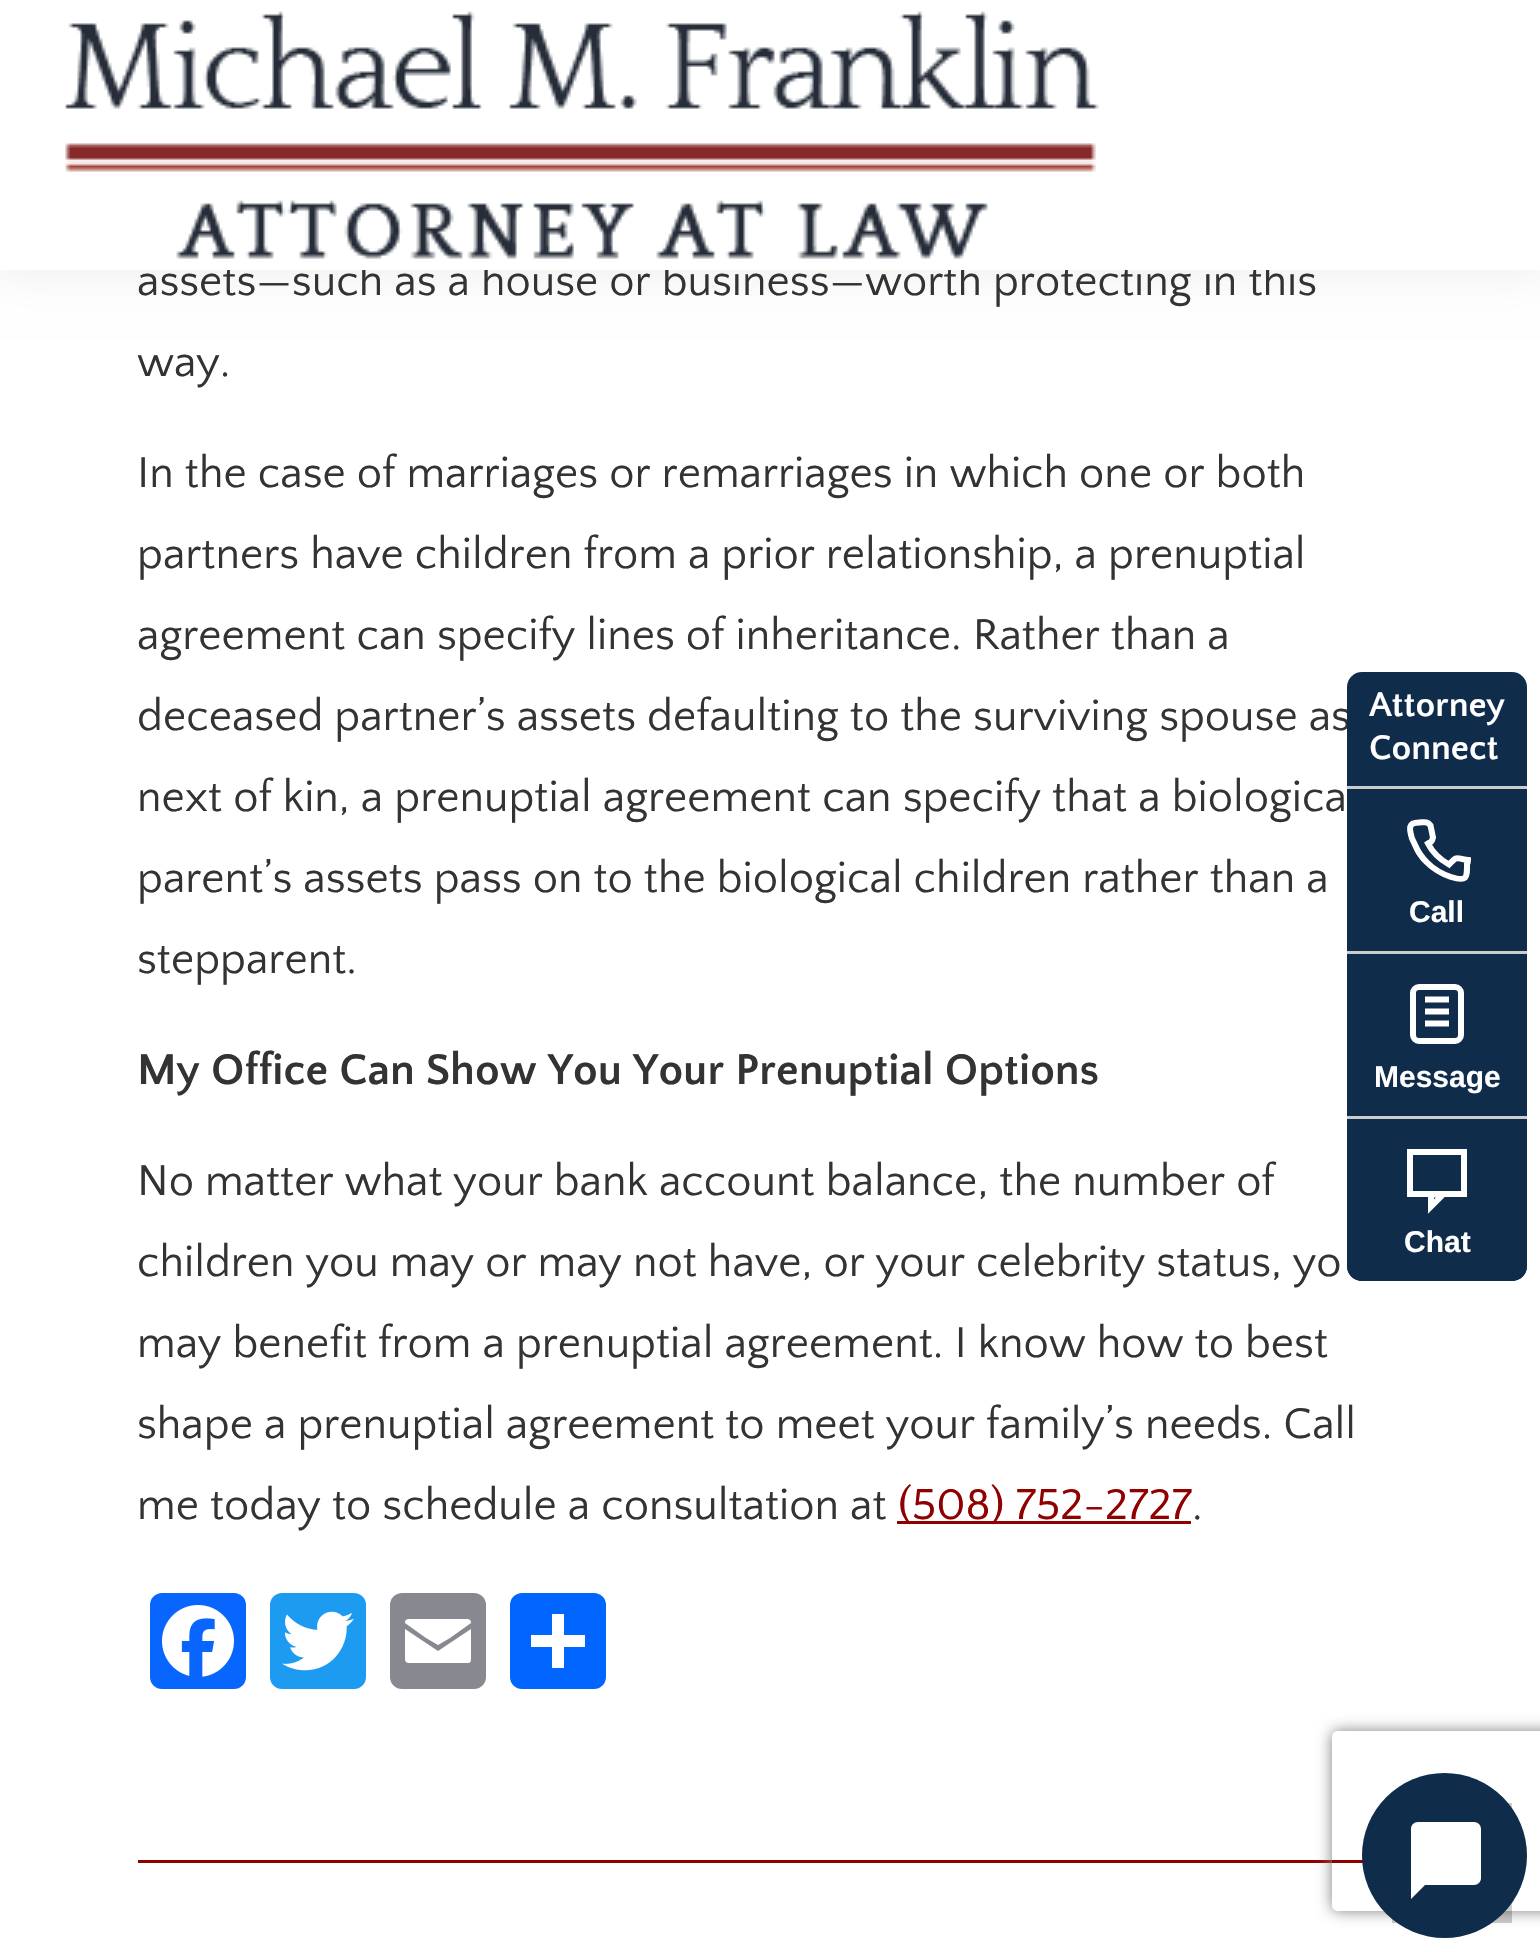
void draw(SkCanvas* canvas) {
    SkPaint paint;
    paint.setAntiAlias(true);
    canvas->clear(0xFFFFFFFF);
    paint.setColor(0x12000000);
    paint.setMaskFilter(SkMaskFilter::MakeBlur(kNormal_SkBlurStyle, 22.5f));
    canvas->drawRect(SkRect::MakeXYWH(-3, -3, 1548, 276), paint);
    paint.setMaskFilter(nullptr);
    SkFont font1(fontMgr->matchFamilyStyle("Quattrocento Sans", SkFontStyle::Normal()), 45);
    font1.setSubpixel(true);
    paint.setColor(0xFF333333);
    canvas->drawString("assets—such as a house or business—worth protecting in this", 137, 295, font1, paint);
    paint.setColor(0xFFFFFFFF);
    canvas->drawRect(SkRect::MakeXYWH(0, 0, 1540, 270), paint);
    canvas->drawImageRect(SkImages::DeferredFromEncodedData(SkData::MakeFromFileName("img1.png")), SkRect::MakeXYWH(65, 11, 1034, 248), SkSamplingOptions());
    paint.setColor(0xFF333333);
    canvas->drawString("way.", 137, 376, font1, paint);
    canvas->drawString("In the case of marriages or remarriages in which one or both", 137, 487, font1, paint);
    canvas->drawString("partners have children from a prior relationship, a prenuptial", 137, 568, font1, paint);
    canvas->drawString("agreement can specify lines of inheritance. Rather than a", 137, 649, font1, paint);
    canvas->drawString("deceased partner’s assets defaulting to the surviving spouse as", 137, 730, font1, paint);
    canvas->drawString("next of kin, a prenuptial agreement can specify that a biologica", 137, 811, font1, paint);
    canvas->drawString("parent’s assets pass on to the biological children rather than a", 137, 892, font1, paint);
    canvas->drawString("stepparent.", 137, 973, font1, paint);
    SkFont font2(fontMgr->matchFamilyStyle("Quattrocento Sans", SkFontStyle::Bold()), 45);
    font2.setSubpixel(true);
    canvas->drawString("My Office Can Show You Your Prenuptial Options", 137, 1084, font2, paint);
    canvas->drawString("No matter what your bank account balance, the number of", 137, 1195, font1, paint);
    canvas->drawString("children you may or may not have, or your celebrity status, yo", 137, 1276, font1, paint);
    canvas->drawString("may benefit from a prenuptial agreement. I know how to best", 137, 1357, font1, paint);
    canvas->drawString("shape a prenuptial agreement to meet your family’s needs. Call", 137, 1438, font1, paint);
    canvas->drawString("me today to schedule a consultation at", 137, 1519, font1, paint);
    paint.setColor(0xFF910000);
    canvas->drawRect(SkRect::MakeXYWH(897, 1521, 294, 3), paint);
    canvas->drawString("(508) 752-2727", 898, 1519, font1, paint);
    paint.setColor(0xFF333333);
    canvas->drawString(".", 1192, 1519, font1, paint);
    paint.setColor(0xFF0866FF);
    canvas->drawRoundRect(SkRect::MakeXYWH(150, 1593, 96, 96), 12, 12, paint);
    canvas->drawImageRect(SkImages::DeferredFromEncodedData(SkData::MakeFromFileName("img2.png")), SkRect::MakeXYWH(162, 1605, 72, 72), SkSamplingOptions());
    paint.setColor(0xFF1D9BF0);
    canvas->drawRoundRect(SkRect::MakeXYWH(270, 1593, 96, 96), 12, 12, paint);
    canvas->drawImageRect(SkImages::DeferredFromEncodedData(SkData::MakeFromFileName("img3.png")), SkRect::MakeXYWH(282, 1611, 72, 60), SkSamplingOptions());
    paint.setColor(0xFF888990);
    canvas->drawRoundRect(SkRect::MakeXYWH(390, 1593, 96, 96), 12, 12, paint);
    paint.setColor(0xFFFFFFFF);
    canvas->drawPath(SkPathBuilder().moveTo(471, 1658).lineTo(471, 1629).lineTo(438, 1651).lineTo(405, 1629).lineTo(405, 1658).cubicTo(405, 1662, 406, 1663, 410, 1663).lineTo(466, 1663).cubicTo(470, 1663, 471, 1663, 471, 1658).moveTo(471, 1623).cubicTo(471, 1620, 470, 1619, 466, 1619).lineTo(410, 1619).cubicTo(406, 1619, 405, 1620, 405, 1623).lineTo(426, 1638).lineTo(438, 1645).lineTo(450, 1638).close().detach(), paint);
    paint.setColor(0xFF0166FF);
    canvas->drawRoundRect(SkRect::MakeXYWH(510, 1593, 96, 96), 12, 12, paint);
    paint.setColor(0xFFFFFFFF);
    canvas->drawRect(SkRect::MakeXYWH(552, 1614, 12, 54), paint);
    canvas->drawRect(SkRect::MakeXYWH(531, 1635, 54, 12), paint);
    paint.setColor(0xFF910000);
    canvas->drawRect(SkRect::MakeXYWH(138, 1860, 1225, 3), paint);
    canvas->save();
    canvas->clipPath(SkPathBuilder(SkPathFillType::kEvenOdd).moveTo(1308, 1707).lineTo(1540, 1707).lineTo(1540, 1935).lineTo(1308, 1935).close().moveTo(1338, 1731).lineTo(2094, 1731).cubicTo(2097.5f, 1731, 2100, 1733.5f, 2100, 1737).lineTo(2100, 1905).cubicTo(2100, 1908.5f, 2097.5f, 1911, 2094, 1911).lineTo(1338, 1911).cubicTo(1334.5f, 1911, 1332, 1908.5f, 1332, 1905).lineTo(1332, 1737).cubicTo(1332, 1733.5f, 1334.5f, 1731, 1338, 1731).close().detach(), true);
    paint.setColor(0xFF808080);
    paint.setMaskFilter(SkMaskFilter::MakeBlur(kNormal_SkBlurStyle, 7.5f));
    canvas->drawRoundRect(SkRect::MakeXYWH(1332, 1731, 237, 180), 6, 6, paint);
    paint.setMaskFilter(nullptr);
    canvas->restore();
    paint.setColor(0x33000000);
    canvas->drawRect(SkRect::MakeXYWH(1392, 1803, 120, 120), paint);
    paint.setColor(0xFF0F2C4B);
    canvas->drawRoundRect(SkRect::MakeXYWH(1347, 672, 180, 609), 15, 15, paint);
    SkFont font3(fontMgr->matchFamilyStyle("Quattrocento Sans", SkFontStyle::Bold()), 36);
    font3.setSubpixel(true);
    paint.setColor(0xFFFFFFFF);
    canvas->drawString("Attorney", 1369, 716, font3, paint);
    canvas->drawString("Connect", 1369, 759, font3, paint);
    paint.setColor(0xFFCCCCCC);
    canvas->drawRect(SkRect::MakeXYWH(1347, 786, 180, 3), paint);
    paint.setStyle(SkPaint::kStroke_Style);
    paint.setStrokeWidth(6);
    paint.setColor(0xFFFFFFFF);
    canvas->drawPath(SkPathBuilder().moveTo(1467, 864).cubicTo(1467, 877.5f, 1467.5f, 882, 1451, 877).cubicTo(1442, 874, 1433.5f, 869, 1427, 862.5f).cubicTo(1422.5f, 858, 1418.5f, 853, 1416, 847).lineTo(1412, 838.5f).cubicTo(1409, 828.5f, 1408, 822.5f, 1419, 822.5f).cubicTo(1422, 822.5f, 1425.5f, 821.5f, 1428, 823).lineTo(1430.5f, 825.5f).lineTo(1433, 837.5f).lineTo(1432, 840.5f).cubicTo(1431.5f, 842, 1429.5f, 842.5f, 1428, 843.5f).cubicTo(1432.5f, 852.5f, 1440, 859.5f, 1449, 864.5f).cubicTo(1458.5f, 854.5f, 1456, 859, 1468, 860).cubicTo(1468, 861.5f, 1468, 863, 1467, 864).close().detach(), paint);
    SkFont font4(fontMgr->matchFamilyStyle("Liberation Sans", SkFontStyle::Bold()), 30);
    font4.setSubpixel(true);
    paint.setStyle(SkPaint::kFill_Style);
    canvas->drawString("Call", 1409, 922, font4, paint);
    paint.setColor(0xFFCCCCCC);
    canvas->drawRect(SkRect::MakeXYWH(1347, 951, 180, 3), paint);
    paint.setStyle(SkPaint::kStroke_Style);
    paint.setColor(0xFFFFFFFF);
    canvas->drawRoundRect(SkRect::MakeXYWH(1413, 987, 48, 54), 6, 6, paint);
    canvas->drawPath(SkPathBuilder().moveTo(1425, 999.5f).lineTo(1449, 999.5f).moveTo(1425, 1011.5f).lineTo(1449, 1011.5f).moveTo(1425, 1023.5f).lineTo(1449, 1023.5f).detach(), paint);
    paint.setStyle(SkPaint::kFill_Style);
    canvas->drawString("Message", 1374, 1087, font4, paint);
    paint.setColor(0xFF0F2C4B);
    canvas->drawPath(SkPathBuilder().moveTo(1347, 1116).lineTo(1527, 1116).lineTo(1527, 1266).cubicTo(1527, 1274.5f, 1520.5f, 1281, 1512, 1281).lineTo(1362, 1281).cubicTo(1353.5f, 1281, 1347, 1274.5f, 1347, 1266).close().detach(), paint);
    paint.setColor(0xFFCCCCCC);
    canvas->drawRect(SkRect::MakeXYWH(1347, 1116, 180, 3), paint);
    paint.setStyle(SkPaint::kStroke_Style);
    paint.setColor(0xFFFFFFFF);
    canvas->drawRect(SkRect::MakeXYWH(1410, 1152, 54, 42), paint);
    canvas->drawPath(SkPathBuilder().moveTo(1431, 1194.5f).lineTo(1431, 1206.5f).lineTo(1443, 1194.5f).close().detach(), paint);
    paint.setStyle(SkPaint::kFill_Style);
    canvas->drawString("Chat", 1404, 1252, font4, paint);
    paint.setColor(0xFF0F2C4B);
    canvas->drawCircle(1444.5f, 1855.5f, 82.5f, paint);
    paint.setColor(0xFFFFFFFF);
    canvas->drawPath(SkPathBuilder().moveTo(1418, 1822).lineTo(1474, 1822).cubicTo(1478, 1822, 1481, 1825, 1481, 1829).lineTo(1481, 1878).cubicTo(1481, 1882, 1478, 1885, 1474, 1885).lineTo(1425, 1885).lineTo(1411, 1899).lineTo(1411, 1829).cubicTo(1411, 1825, 1414, 1822, 1418, 1822).close().detach(), paint);
}
